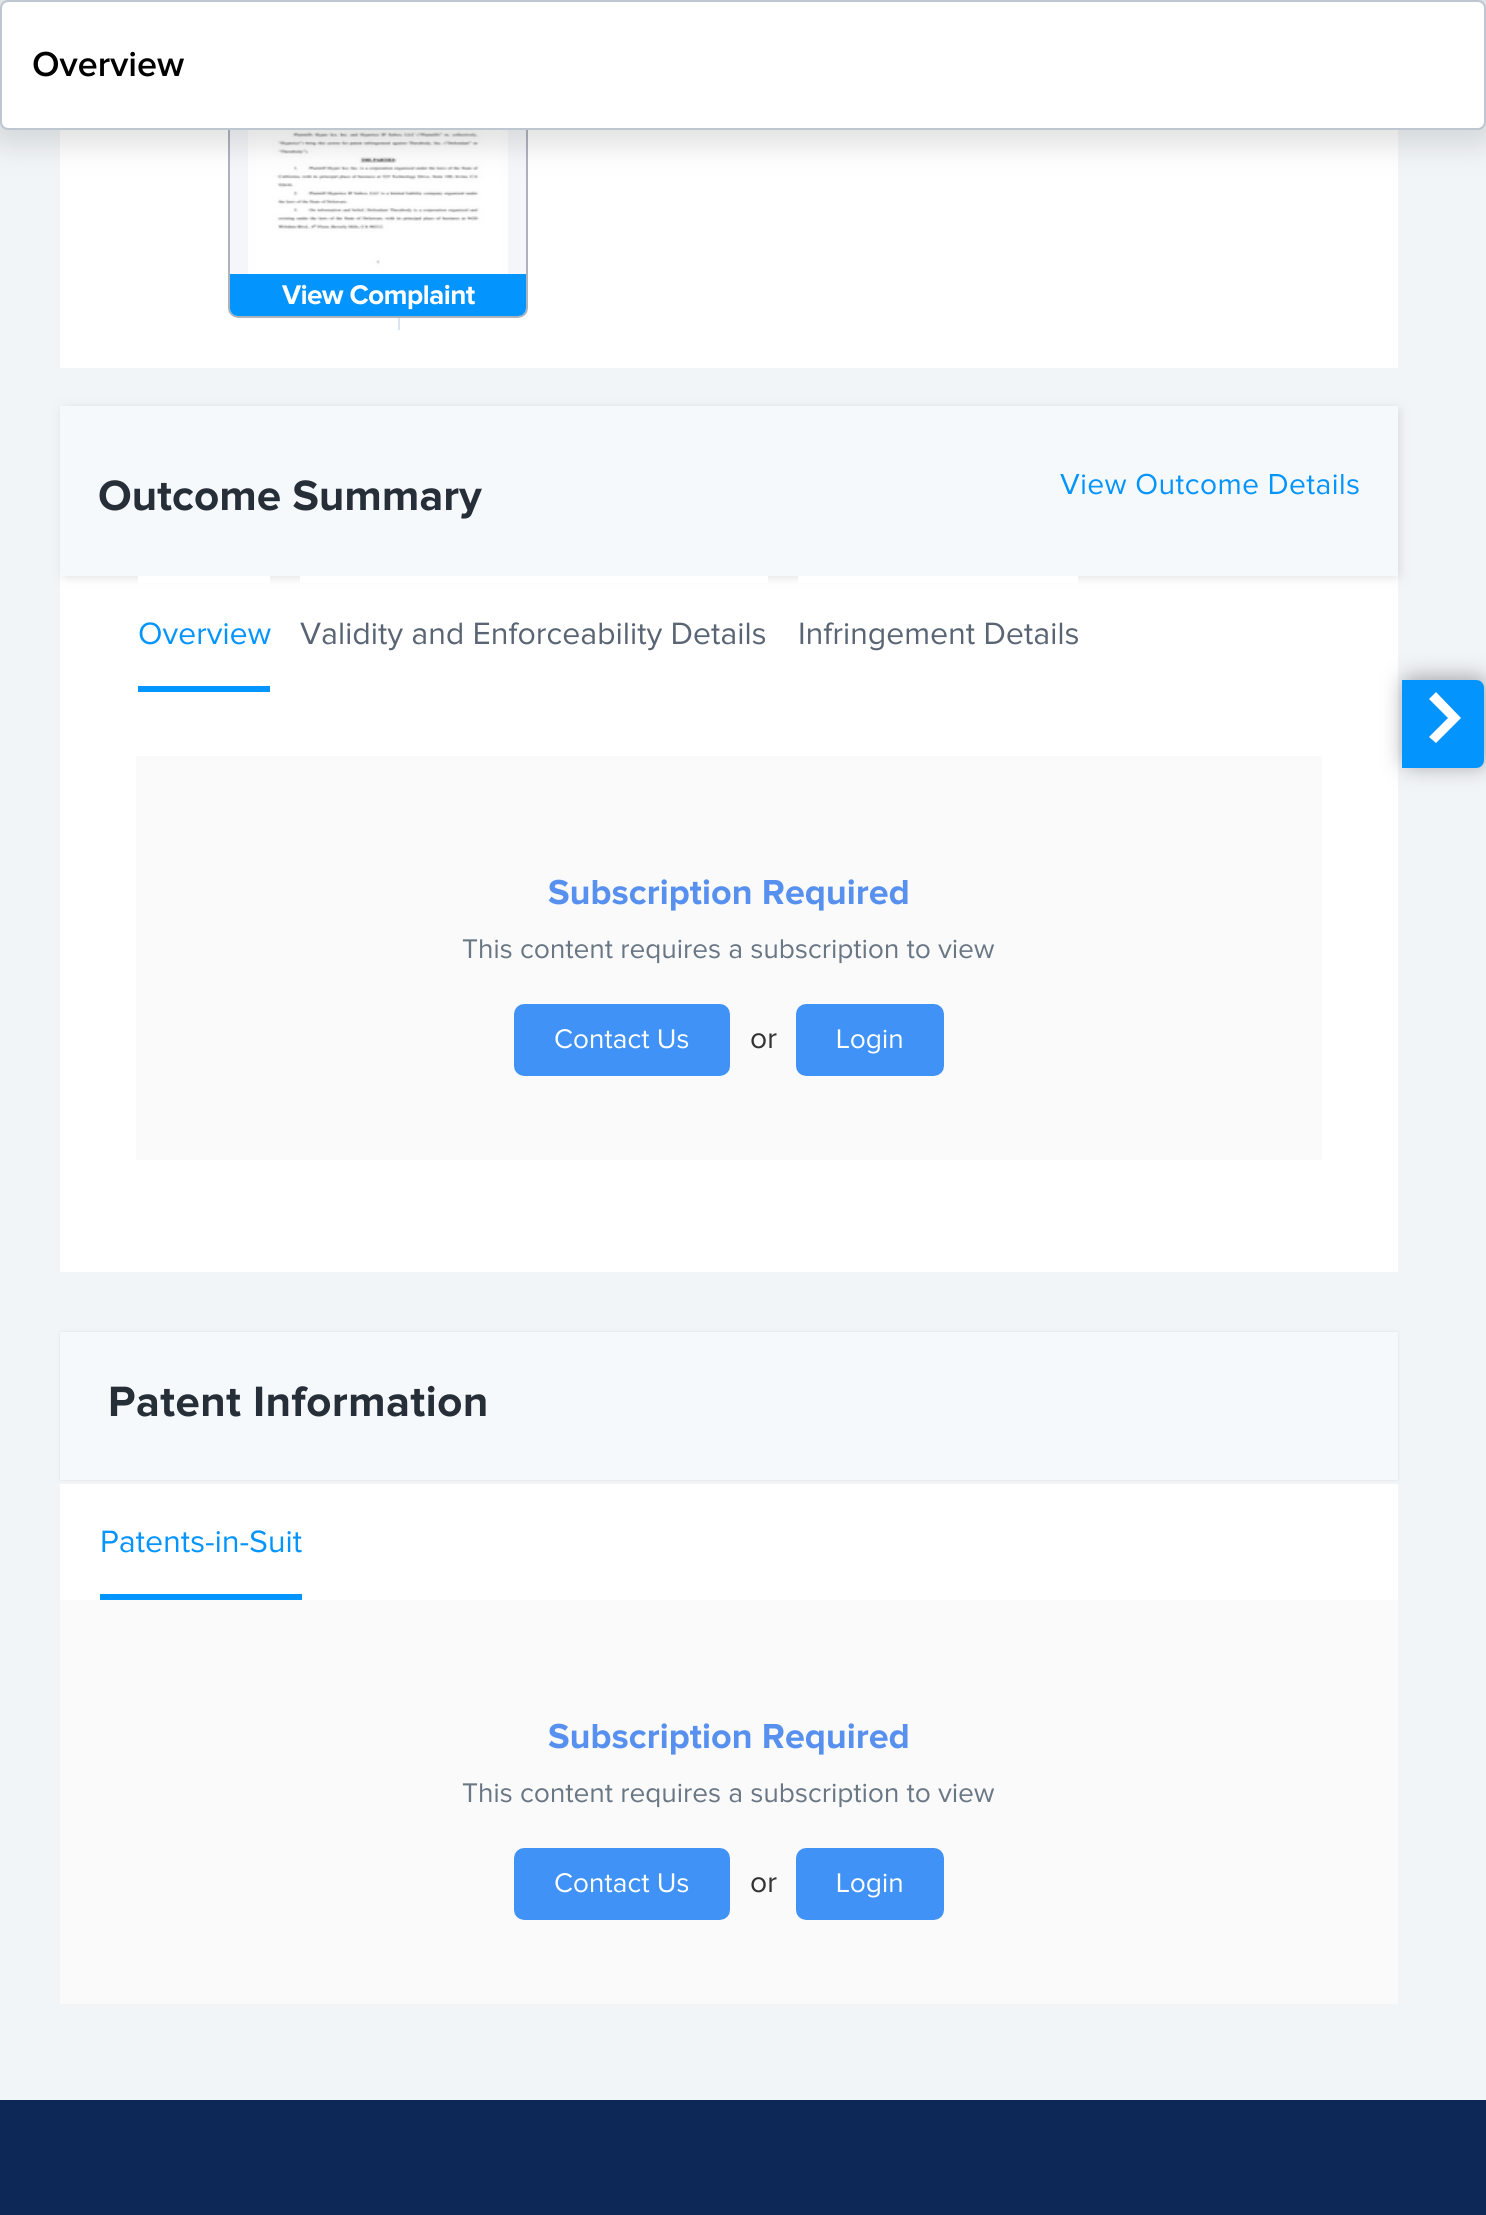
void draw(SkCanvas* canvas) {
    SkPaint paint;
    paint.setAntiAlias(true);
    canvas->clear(0xFFF2F5F8);
    paint.setColor(0xFFFFFFFF);
    canvas->drawRect(SkRect::MakeXYWH(60, 130, 1338, 238), paint);
    paint.setColor(0xFFF4F6F9);
    canvas->drawRoundRect(SkRect::MakeXYWH(229, 19, 298, 298), 9, 9, paint);
    paint.setStyle(SkPaint::kStroke_Style);
    paint.setStrokeWidth(2);
    paint.setColor(0xFFADB3BD);
    canvas->drawRoundRect(SkRect::MakeXYWH(229, 19, 298, 298), 9, 9, paint);
    canvas->drawImageRect(SkImages::DeferredFromEncodedData(SkData::MakeFromFileName("img2.png")), SkRect::MakeXYWH(248, 130, 260, 144), SkSamplingOptions());
    paint.setStyle(SkPaint::kFill_Style);
    paint.setColor(0x1A000000);
    paint.setMaskFilter(SkMaskFilter::MakeBlur(kNormal_SkBlurStyle, 12));
    canvas->drawRoundRect(SkRect::MakeXYWH(-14, -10, 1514, 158), 22, 22, paint);
    paint.setMaskFilter(nullptr);
    paint.setColor(0xFFFFFFFF);
    canvas->drawRoundRect(SkRect::MakeXYWH(1, 1, 1484, 128), 7, 7, paint);
    paint.setStyle(SkPaint::kStroke_Style);
    paint.setColor(0xFFBEC7D1);
    canvas->drawRoundRect(SkRect::MakeXYWH(1, 1, 1484, 128), 7, 7, paint);
    canvas->drawImageRect(SkImages::DeferredFromEncodedData(SkData::MakeFromFileName("img1.png")), SkRect::MakeXYWH(33, 51, 151, 26), SkSamplingOptions());
    paint.setStyle(SkPaint::kFill_Style);
    paint.setColor(0xFFFFFFFF);
    canvas->drawPath(SkPathBuilder().moveTo(1448, 2).lineTo(1476, 2).cubicTo(1480.5f, 2, 1484, 5.5f, 1484, 10).lineTo(1484, 120).cubicTo(1484, 124.5f, 1480.5f, 128, 1476, 128).lineTo(1448, 128).close().detach(), paint);
    paint.setColor(0xFFDAE4EE);
    canvas->drawRect(SkRect::MakeXYWH(398, 318, 2, 12), paint);
    paint.setColor(0xFF0494FE);
    canvas->drawPath(SkPathBuilder().moveTo(230, 274).lineTo(526, 274).lineTo(526, 308).cubicTo(526, 312.5f, 522.5f, 316, 518, 316).lineTo(238, 316).cubicTo(233.5f, 316, 230, 312.5f, 230, 308).close().detach(), paint);
    canvas->drawImageRect(SkImages::DeferredFromEncodedData(SkData::MakeFromFileName("img3.png")), SkRect::MakeXYWH(282, 284, 193, 26), SkSamplingOptions());
    paint.setColor(0xFFFFFFFF);
    canvas->drawRect(SkRect::MakeXYWH(60, 576, 1338, 696), paint);
    paint.setColor(0x1A000000);
    paint.setMaskFilter(SkMaskFilter::MakeBlur(kNormal_SkBlurStyle, 4));
    canvas->drawRect(SkRect::MakeXYWH(62, 408, 1338, 170), paint);
    paint.setMaskFilter(nullptr);
    paint.setColor(0xFFF6F9FB);
    canvas->drawRect(SkRect::MakeXYWH(60, 406, 1338, 170), paint);
    canvas->drawImageRect(SkImages::DeferredFromEncodedData(SkData::MakeFromFileName("img4.png")), SkRect::MakeXYWH(99, 480, 383, 39), SkSamplingOptions());
    canvas->drawImageRect(SkImages::DeferredFromEncodedData(SkData::MakeFromFileName("img5.png")), SkRect::MakeXYWH(1060, 473, 299, 22), SkSamplingOptions());
    paint.setColor(0xFF0294FF);
    canvas->drawRect(SkRect::MakeXYWH(138, 686, 132, 6), paint);
    paint.setColor(0xFFFFFFFF);
    canvas->drawRect(SkRect::MakeXYWH(138, 576, 132, 7), paint);
    canvas->drawImageRect(SkImages::DeferredFromEncodedData(SkData::MakeFromFileName("img6.png")), SkRect::MakeXYWH(139, 622, 132, 23), SkSamplingOptions());
    canvas->drawRect(SkRect::MakeXYWH(300, 576, 468, 7), paint);
    canvas->drawImageRect(SkImages::DeferredFromEncodedData(SkData::MakeFromFileName("img7.png")), SkRect::MakeXYWH(300, 622, 465, 29), SkSamplingOptions());
    canvas->drawRect(SkRect::MakeXYWH(798, 576, 280, 7), paint);
    canvas->drawImageRect(SkImages::DeferredFromEncodedData(SkData::MakeFromFileName("img8.png")), SkRect::MakeXYWH(800, 622, 278, 29), SkSamplingOptions());
    paint.setColor(0xFFFAFAFA);
    canvas->drawRect(SkRect::MakeXYWH(136, 756, 1186, 404), paint);
    canvas->drawImageRect(SkImages::DeferredFromEncodedData(SkData::MakeFromFileName("img9.png")), SkRect::MakeXYWH(548, 879, 360, 32), SkSamplingOptions());
    canvas->drawImageRect(SkImages::DeferredFromEncodedData(SkData::MakeFromFileName("img10.png")), SkRect::MakeXYWH(462, 939, 533, 25), SkSamplingOptions());
    paint.setColor(0xFF4192F6);
    canvas->drawRoundRect(SkRect::MakeXYWH(515, 1005, 214, 70), 9, 9, paint);
    paint.setStyle(SkPaint::kStroke_Style);
    canvas->drawRoundRect(SkRect::MakeXYWH(515, 1005, 214, 70), 9, 9, paint);
    canvas->drawImageRect(SkImages::DeferredFromEncodedData(SkData::MakeFromFileName("img11.png")), SkRect::MakeXYWH(555, 1029, 134, 20), SkSamplingOptions());
    canvas->drawImageRect(SkImages::DeferredFromEncodedData(SkData::MakeFromFileName("img12.png")), SkRect::MakeXYWH(751, 1033, 26, 16), SkSamplingOptions());
    paint.setStyle(SkPaint::kFill_Style);
    canvas->drawRoundRect(SkRect::MakeXYWH(797, 1005, 146, 70), 9, 9, paint);
    paint.setStyle(SkPaint::kStroke_Style);
    canvas->drawRoundRect(SkRect::MakeXYWH(797, 1005, 146, 70), 9, 9, paint);
    canvas->drawImageRect(SkImages::DeferredFromEncodedData(SkData::MakeFromFileName("img13.png")), SkRect::MakeXYWH(837, 1029, 65, 25), SkSamplingOptions());
    paint.setStyle(SkPaint::kFill_Style);
    paint.setColor(0x1A000000);
    paint.setMaskFilter(SkMaskFilter::MakeBlur(kNormal_SkBlurStyle, 1));
    canvas->drawRect(SkRect::MakeXYWH(60, 1332, 1338, 148), paint);
    paint.setMaskFilter(nullptr);
    paint.setColor(0xFFF6F9FB);
    canvas->drawRect(SkRect::MakeXYWH(60, 1332, 1338, 148), paint);
    canvas->drawImageRect(SkImages::DeferredFromEncodedData(SkData::MakeFromFileName("img14.png")), SkRect::MakeXYWH(110, 1385, 376, 32), SkSamplingOptions());
    paint.setColor(0xFFFFFFFF);
    canvas->drawRect(SkRect::MakeXYWH(60, 1484, 1338, 116), paint);
    paint.setColor(0xFF0294FF);
    canvas->drawRect(SkRect::MakeXYWH(100, 1594, 202, 6), paint);
    canvas->drawImageRect(SkImages::DeferredFromEncodedData(SkData::MakeFromFileName("img15.png")), SkRect::MakeXYWH(102, 1530, 200, 23), SkSamplingOptions());
    paint.setColor(0xFFFAFAFA);
    canvas->drawRect(SkRect::MakeXYWH(60, 1600, 1338, 404), paint);
    canvas->drawImageRect(SkImages::DeferredFromEncodedData(SkData::MakeFromFileName("img9.png")), SkRect::MakeXYWH(548, 1723, 360, 32), SkSamplingOptions());
    canvas->drawImageRect(SkImages::DeferredFromEncodedData(SkData::MakeFromFileName("img10.png")), SkRect::MakeXYWH(462, 1783, 533, 25), SkSamplingOptions());
    paint.setColor(0xFF4192F6);
    canvas->drawRoundRect(SkRect::MakeXYWH(515, 1849, 214, 70), 9, 9, paint);
    paint.setStyle(SkPaint::kStroke_Style);
    canvas->drawRoundRect(SkRect::MakeXYWH(515, 1849, 214, 70), 9, 9, paint);
    canvas->drawImageRect(SkImages::DeferredFromEncodedData(SkData::MakeFromFileName("img11.png")), SkRect::MakeXYWH(555, 1873, 134, 20), SkSamplingOptions());
    canvas->drawImageRect(SkImages::DeferredFromEncodedData(SkData::MakeFromFileName("img12.png")), SkRect::MakeXYWH(751, 1877, 26, 16), SkSamplingOptions());
    paint.setStyle(SkPaint::kFill_Style);
    canvas->drawRoundRect(SkRect::MakeXYWH(797, 1849, 146, 70), 9, 9, paint);
    paint.setStyle(SkPaint::kStroke_Style);
    canvas->drawRoundRect(SkRect::MakeXYWH(797, 1849, 146, 70), 9, 9, paint);
    canvas->drawImageRect(SkImages::DeferredFromEncodedData(SkData::MakeFromFileName("img13.png")), SkRect::MakeXYWH(837, 1873, 65, 25), SkSamplingOptions());
    paint.setStyle(SkPaint::kFill_Style);
    paint.setColor(0x4D000000);
    paint.setMaskFilter(SkMaskFilter::MakeBlur(kNormal_SkBlurStyle, 10));
    canvas->drawRoundRect(SkRect::MakeXYWH(1402, 676, 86, 92), 10, 10, paint);
    paint.setMaskFilter(nullptr);
    paint.setColor(0xFF0494FE);
    canvas->drawPath(SkPathBuilder().moveTo(1402, 680).lineTo(1476, 680).cubicTo(1480.5f, 680, 1484, 683.5f, 1484, 688).lineTo(1484, 760).cubicTo(1484, 764.5f, 1480.5f, 768, 1476, 768).lineTo(1402, 768).close().detach(), paint);
    paint.setColor(0xFFFFFFFF);
    canvas->drawPath(SkPathBuilder().moveTo(1436, 692).lineTo(1429, 699).lineTo(1448, 718).lineTo(1429, 737).lineTo(1436, 743).lineTo(1461, 718).close().detach(), paint);
    paint.setColor(0xFF0D2857);
    canvas->drawRect(SkRect::MakeXYWH(0, 2100, 1486, 115), paint);
}
